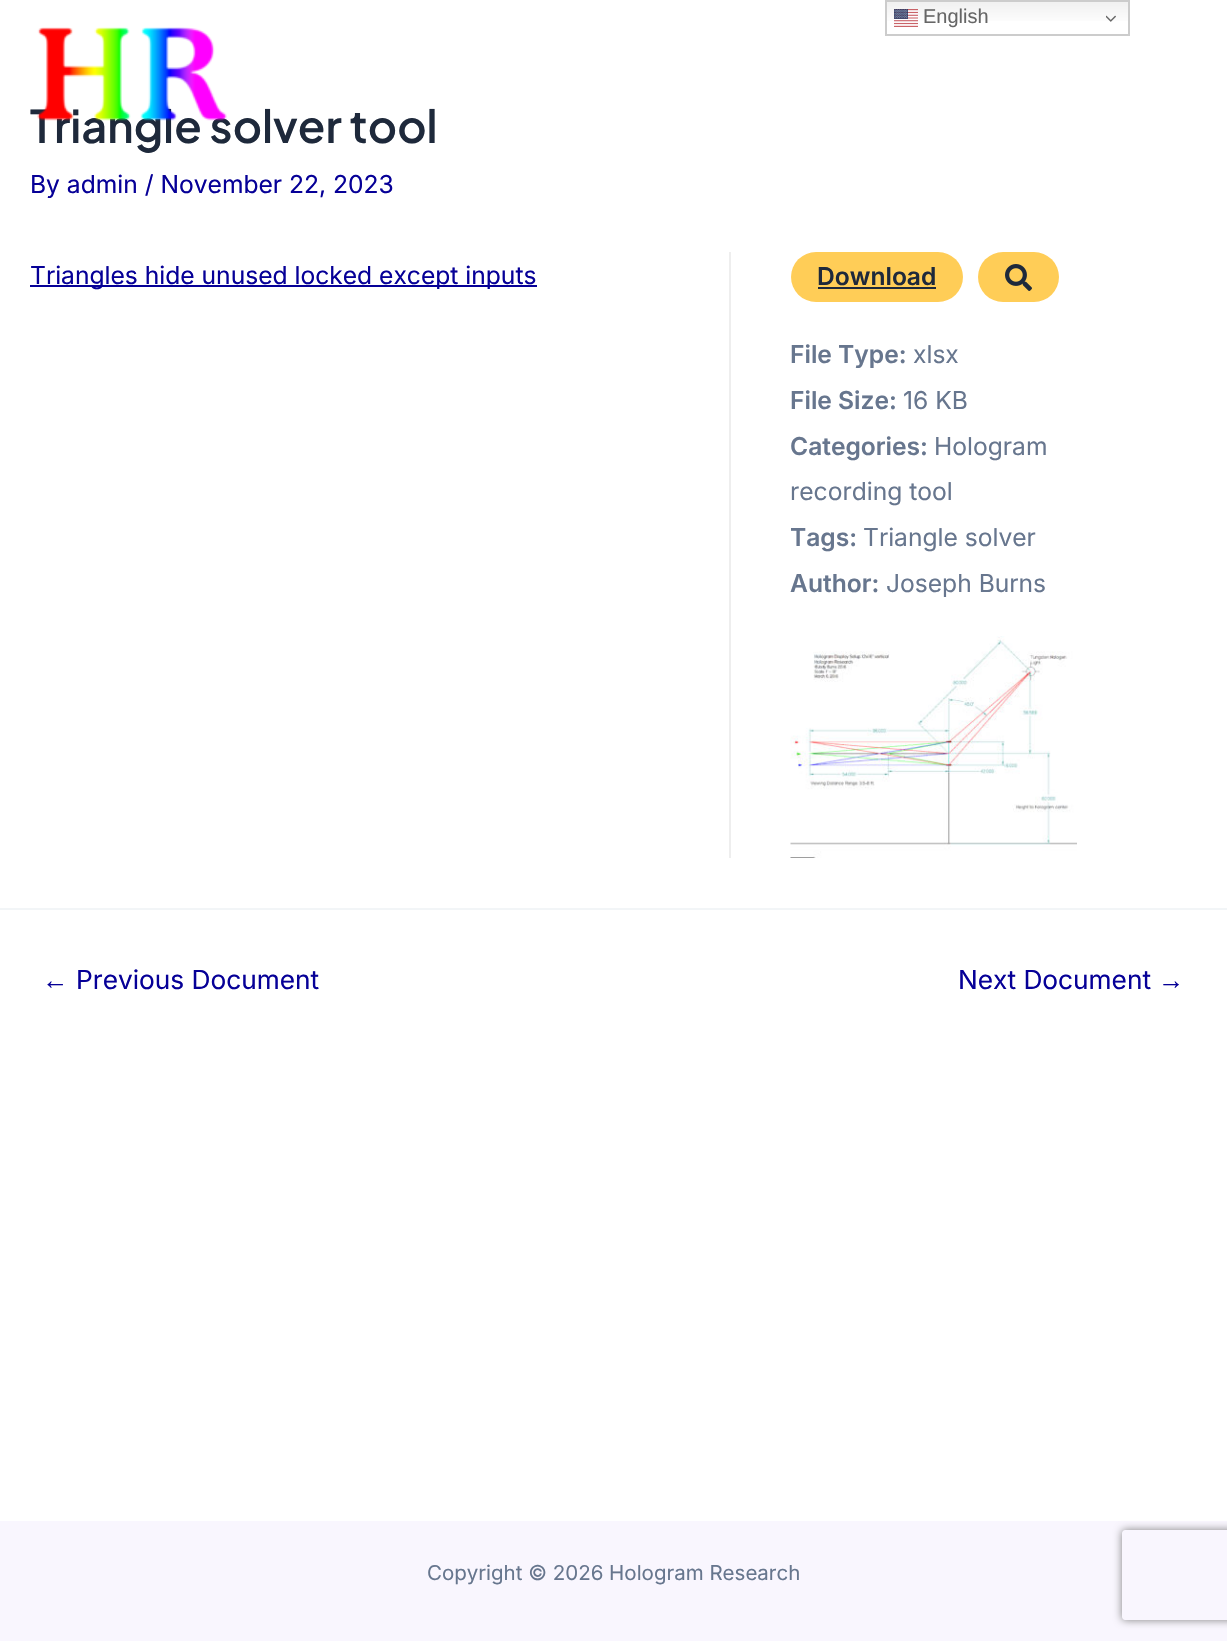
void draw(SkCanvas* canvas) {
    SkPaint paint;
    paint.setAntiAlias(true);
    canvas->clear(0xFFFFFFFF);
    {
        const SkColor colors[] = {0xFFEFEFEF, 0xFFFFFFFF};
        const float stops[] = {0, 0.7f};
        const SkPoint ends[] = {{1007, 0}, {1007, 36}};
        paint.setShader(SkGradientShader::MakeLinear(ends, colors, stops, 2, SkTileMode::kClamp));
        paint.setAlpha(255);
    }
    canvas->drawRect(SkRect::MakeXYWH(887, 2, 241, 19), paint);
    paint.setStyle(SkPaint::kStroke_Style);
    paint.setStrokeWidth(2);
    paint.setShader(nullptr);
    paint.setColor(0xFFCCCCCC);
    canvas->drawRect(SkRect::MakeXYWH(886, 1, 243, 34), paint);
    canvas->drawImageRect(SkImages::DeferredFromEncodedData(SkData::MakeFromFileName("img1.png")), SkRect::MakeXYWH(894, 9, 24, 18), SkSamplingOptions());
    SkFont font1(fontMgr->matchFamilyStyle("Liberation Sans", SkFontStyle::Normal()), 20);
    font1.setSubpixel(true);
    paint.setStyle(SkPaint::kFill_Style);
    paint.setColor(0xFF666666);
    canvas->drawString("English", 923, 23, font1, paint);
    canvas->drawImageRect(SkImages::DeferredFromEncodedData(SkData::MakeFromFileName("img2.png")), SkRect::MakeXYWH(1106, 15, 10, 7), SkSamplingOptions());
    SkFont font2(fontMgr->matchFamilyStyle("Plus Jakarta Sans", SkFontStyle(600, SkFontStyle::kNormal_Width, SkFontStyle::kUpright_Slant)), 45);
    font2.setSubpixel(true);
    paint.setColor(0xFF1E293B);
    canvas->drawString("Triangle solver tool", 30, 143, font2, paint);
    canvas->drawImageRect(SkImages::DeferredFromEncodedData(SkData::MakeFromFileName("img3.png")), SkRect::MakeXYWH(37, 27, 190, 94), SkSamplingOptions());
    SkFont font3(fontMgr->matchFamilyStyle("Inter", SkFontStyle::Normal()), 24.6f);
    font3.setSubpixel(true);
    paint.setColor(0xFF060097);
    canvas->drawString("By admin / November 22, 2023", 30, 193, font3, paint);
    canvas->drawRect(SkRect::MakeXYWH(30, 285, 507, 2), paint);
    canvas->drawString("Triangles hide unused locked except inputs", 30, 284, font3, paint);
    paint.setColor(0xFFEEEEEE);
    canvas->drawRect(SkRect::MakeXYWH(729, 252, 2, 606), paint);
    paint.setColor(0xFFFFCD57);
    canvas->drawRoundRect(SkRect::MakeXYWH(791, 252, 172, 50), 25, 25, paint);
    SkFont font4(fontMgr->matchFamilyStyle("Inter", SkFontStyle(600, SkFontStyle::kNormal_Width, SkFontStyle::kUpright_Slant)), 24.6f);
    font4.setSubpixel(true);
    paint.setColor(0xFF1E293B);
    canvas->drawString("Download", 817, 285, font4, paint);
    canvas->drawRect(SkRect::MakeXYWH(818, 287, 118, 2), paint);
    paint.setColor(0xFFFFCD57);
    canvas->drawRoundRect(SkRect::MakeXYWH(978, 252, 81, 50), 25, 25, paint);
    canvas->drawImageRect(SkImages::DeferredFromEncodedData(SkData::MakeFromFileName("img4.png")), SkRect::MakeXYWH(1005, 264, 27, 27), SkSamplingOptions());
    paint.setColor(0xFF67768E);
    canvas->drawString("File Type:", 790, 363, font4, paint);
    canvas->drawString("xlsx", 913, 363, font3, paint);
    canvas->drawString("File Size:", 790, 409, font4, paint);
    canvas->drawString("16 KB", 903, 409, font3, paint);
    canvas->drawString("Categories:", 790, 455, font4, paint);
    canvas->drawString("Hologram", 934, 455, font3, paint);
    canvas->drawString("recording tool", 790, 500, font3, paint);
    canvas->drawString("Tags:", 790, 546, font4, paint);
    canvas->drawString("Triangle solver", 863, 546, font3, paint);
    canvas->drawString("Author:", 790, 592, font4, paint);
    canvas->drawString("Joseph Burns", 886, 592, font3, paint);
    canvas->drawImageRect(SkImages::DeferredFromEncodedData(SkData::MakeFromFileName("img5.png")), SkRect::MakeXYWH(790, 636, 287, 222), SkSamplingOptions());
    paint.setColor(0xFFF2F5F7);
    canvas->drawRect(SkRect::MakeXYWH(0, 908, 1227, 2), paint);
    SkFont font5(fontMgr->matchFamilyStyle("Liberation Sans", SkFontStyle::Normal()), 26.25f);
    font5.setSubpixel(true);
    paint.setColor(0xFF060097);
    canvas->drawString("←", 42, 989, font5, paint);
    SkFont font6(fontMgr->matchFamilyStyle("Inter", SkFontStyle::Normal()), 26.25f);
    font6.setSubpixel(true);
    canvas->drawString("Previous Document", 76, 989, font6, paint);
    canvas->drawString("Next Document", 958, 989, font6, paint);
    canvas->drawString("→", 1158, 989, font5, paint);
    paint.setColor(0xFFF9F6FE);
    canvas->drawRect(SkRect::MakeXYWH(0, 1521, 1227, 120), paint);
    SkFont font7(fontMgr->matchFamilyStyle("Inter", SkFontStyle::Normal()), 20.5f);
    font7.setSubpixel(true);
    paint.setColor(0xFF67768E);
    canvas->drawString("Copyright © 2026 Hologram Research", 427, 1580, font7, paint);
    canvas->save();
    canvas->clipPath(SkPathBuilder(SkPathFillType::kEvenOdd).moveTo(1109, 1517).lineTo(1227, 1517).lineTo(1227, 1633).lineTo(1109, 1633).close().moveTo(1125, 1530).lineTo(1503, 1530).cubicTo(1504.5f, 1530, 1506, 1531.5f, 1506, 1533).lineTo(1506, 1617).cubicTo(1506, 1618.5f, 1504.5f, 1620, 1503, 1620).lineTo(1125, 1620).cubicTo(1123.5f, 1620, 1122, 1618.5f, 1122, 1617).lineTo(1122, 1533).cubicTo(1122, 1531.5f, 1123.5f, 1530, 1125, 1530).close().detach(), true);
    paint.setColor(0xFF808080);
    paint.setMaskFilter(SkMaskFilter::MakeBlur(kNormal_SkBlurStyle, 4));
    canvas->drawRoundRect(SkRect::MakeXYWH(1122, 1530, 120, 90), 3, 3, paint);
    paint.setMaskFilter(nullptr);
    canvas->restore();
}
